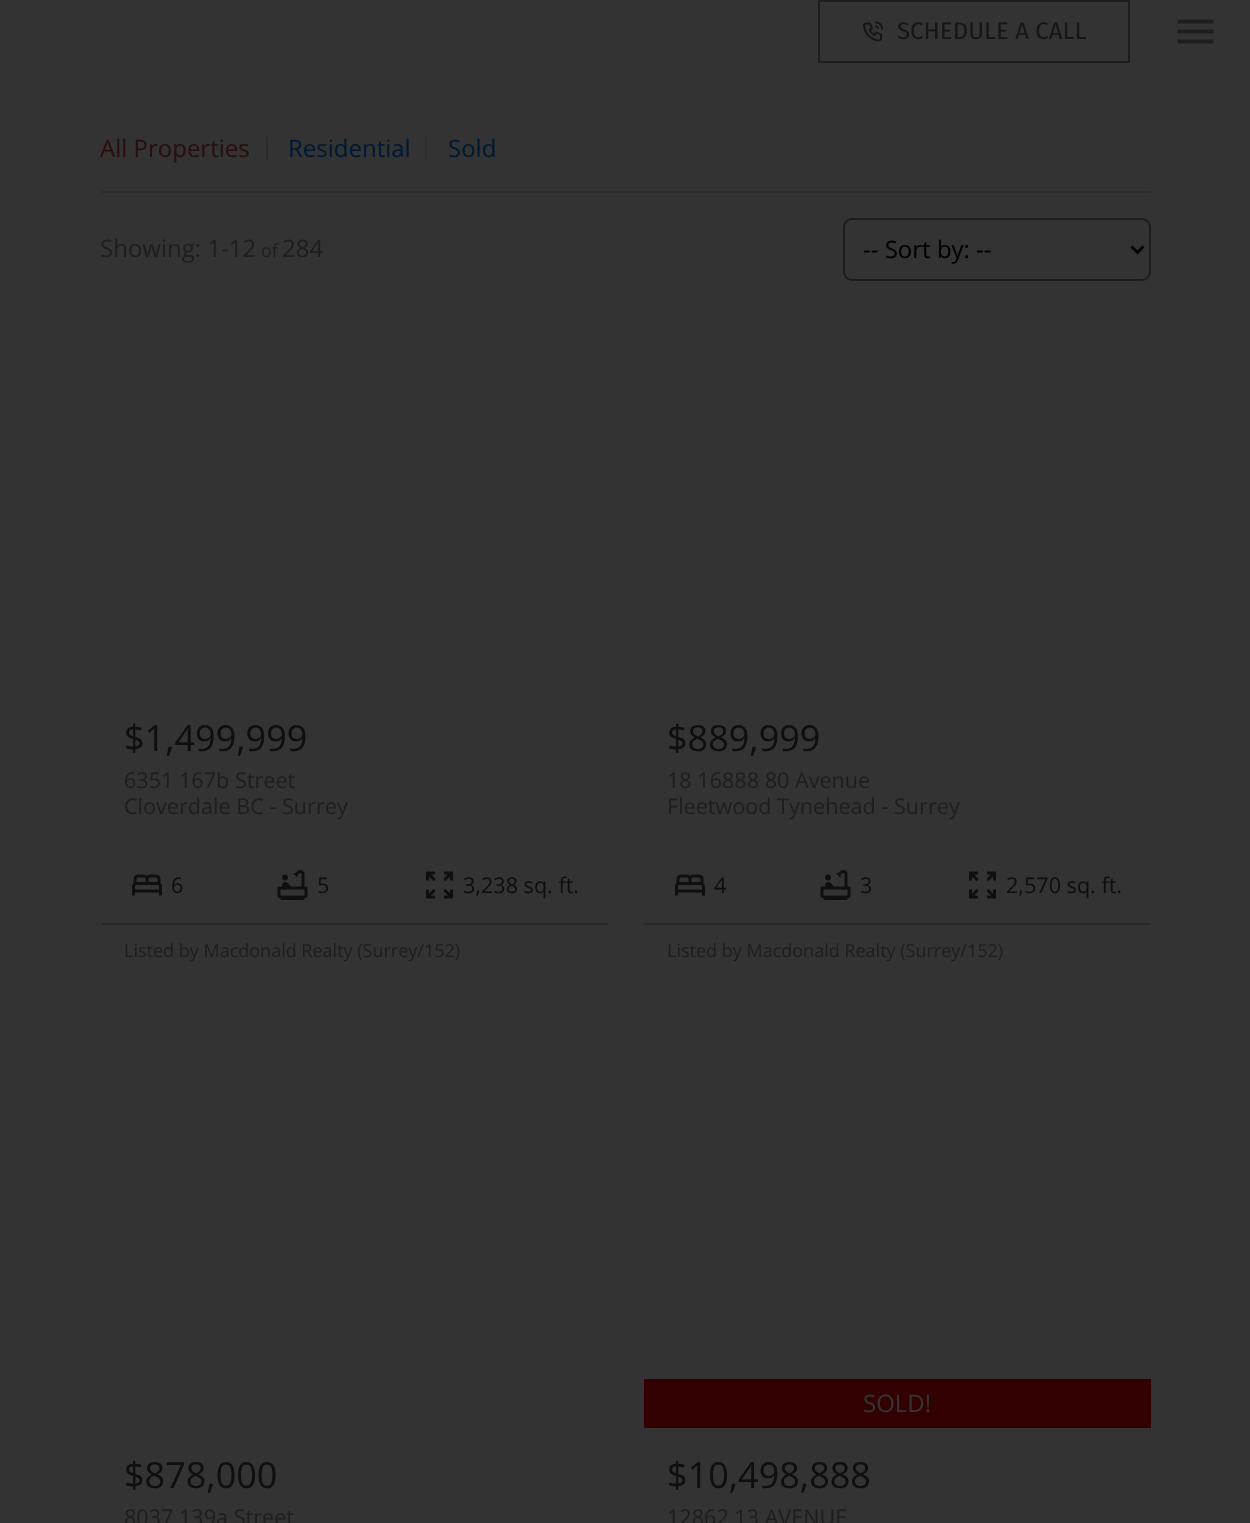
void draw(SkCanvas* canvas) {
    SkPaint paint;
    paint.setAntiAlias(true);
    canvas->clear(0xFF333333);
    paint.setStyle(SkPaint::kStroke_Style);
    paint.setStrokeWidth(2);
    paint.setColor(0xFF1E1E1D);
    canvas->drawRect(SkRect::MakeXYWH(819, 1, 310, 61), paint);
    canvas->drawImageRect(SkImages::DeferredFromEncodedData(SkData::MakeFromFileName("img1.png")), SkRect::MakeXYWH(863, 21, 20, 21), SkSamplingOptions());
    SkFont font1(fontMgr->matchFamilyStyle("Fira Sans", SkFontStyle::Normal()), 24);
    font1.setSubpixel(true);
    paint.setStyle(SkPaint::kFill_Style);
    paint.setColor(0xFF171616);
    canvas->drawString("SCHEDULE A CALL", 897, 39, font1, paint);
    paint.setColor(0xFF1E1E1D);
    canvas->drawPath(SkPathBuilder().moveTo(1177.5f, 43.5f).lineTo(1213.5f, 43.5f).lineTo(1213.5f, 39.5f).lineTo(1177.5f, 39.5f).close().moveTo(1177.5f, 33.5f).lineTo(1213.5f, 33.5f).lineTo(1213.5f, 29.5f).lineTo(1177.5f, 29.5f).close().moveTo(1177.5f, 19.5f).lineTo(1177.5f, 23.5f).lineTo(1213.5f, 23.5f).lineTo(1213.5f, 19.5f).close().detach(), paint);
    paint.setColor(0xFF2C2C2C);
    canvas->drawRect(SkRect::MakeXYWH(266, 137, 2, 24), paint);
    SkFont font2(fontMgr->matchFamilyStyle("Open Sans", SkFontStyle::Normal()), 24);
    font2.setSubpixel(true);
    paint.setColor(0xFF290E0E);
    canvas->drawString("All Properties", 100, 157, font2, paint);
    paint.setColor(0xFF2C2C2C);
    canvas->drawRect(SkRect::MakeXYWH(425, 137, 2, 24), paint);
    paint.setColor(0xFF001933);
    canvas->drawString("Residential", 288, 157, font2, paint);
    canvas->drawString("Sold", 448, 157, font2, paint);
    paint.setColor(0xFF2C2C2C);
    canvas->drawRect(SkRect::MakeXYWH(101, 191, 1050, 2), paint);
    paint.setColor(0xFF1E1E1D);
    canvas->drawString("Showing: 1-12", 100, 257, font2, paint);
    SkFont font3(fontMgr->matchFamilyStyle("Open Sans", SkFontStyle::Normal()), 18);
    font3.setSubpixel(true);
    canvas->drawString("of", 261, 257, font3, paint);
    canvas->drawString("284", 282, 257, font2, paint);
    paint.setStyle(SkPaint::kStroke_Style);
    paint.setColor(0xFF1B1B1B);
    canvas->drawRoundRect(SkRect::MakeXYWH(844, 219, 306, 61), 8, 8, paint);
    paint.setStrokeWidth(3);
    paint.setColor(0xFF000000);
    canvas->drawPath(SkPathBuilder().moveTo(1131.5f, 246.5f).lineTo(1137.5f, 252.5f).lineTo(1143.5f, 246.5f).detach(), paint);
    paint.setStyle(SkPaint::kFill_Style);
    canvas->drawString("-- Sort by: --", 863, 258, font2, paint);
    SkFont font4(fontMgr->matchFamilyStyle("Open Sans", SkFontStyle::Normal()), 36);
    font4.setSubpixel(true);
    paint.setColor(0xFF0F0F0F);
    canvas->drawString("$1,499,999", 124, 751, font4, paint);
    SkFont font5(fontMgr->matchFamilyStyle("Open Sans", SkFontStyle::Normal()), 21.6f);
    font5.setSubpixel(true);
    paint.setColor(0xFF1E1E1D);
    canvas->drawString("6351 167b Street", 124, 788, font5, paint);
    canvas->drawString("Cloverdale BC -", 124, 814, font5, paint);
    canvas->drawString("Surrey", 282, 814, font5, paint);
    canvas->drawImageRect(SkImages::DeferredFromEncodedData(SkData::MakeFromFileName("img2.png")), SkRect::MakeXYWH(132, 874, 30, 22), SkSamplingOptions());
    paint.setColor(0xFF0F0F0F);
    canvas->drawString("6", 171, 893, font5, paint);
    canvas->drawImageRect(SkImages::DeferredFromEncodedData(SkData::MakeFromFileName("img3.png")), SkRect::MakeXYWH(277, 870, 31, 30), SkSamplingOptions());
    canvas->drawString("5", 317, 893, font5, paint);
    canvas->drawImageRect(SkImages::DeferredFromEncodedData(SkData::MakeFromFileName("img4.png")), SkRect::MakeXYWH(426, 871, 27, 28), SkSamplingOptions());
    canvas->drawString("3,238 sq. ft.", 463, 893, font5, paint);
    paint.setColor(0xFF282828);
    canvas->drawRect(SkRect::MakeXYWH(101, 923, 507, 2), paint);
    paint.setColor(0xFF1E1E1D);
    canvas->drawString("Listed by Macdonald Realty (Surrey/152)", 124, 957, font3, paint);
    paint.setColor(0xFF0F0F0F);
    canvas->drawString("$889,999", 667, 751, font4, paint);
    paint.setColor(0xFF1E1E1D);
    canvas->drawString("18 16888 80 Avenue", 667, 788, font5, paint);
    canvas->drawString("Fleetwood Tynehead -", 667, 814, font5, paint);
    canvas->drawString("Surrey", 894, 814, font5, paint);
    canvas->drawImageRect(SkImages::DeferredFromEncodedData(SkData::MakeFromFileName("img2.png")), SkRect::MakeXYWH(675, 874, 30, 22), SkSamplingOptions());
    paint.setColor(0xFF0F0F0F);
    canvas->drawString("4", 714, 893, font5, paint);
    canvas->drawImageRect(SkImages::DeferredFromEncodedData(SkData::MakeFromFileName("img3.png")), SkRect::MakeXYWH(820, 870, 31, 30), SkSamplingOptions());
    canvas->drawString("3", 860, 893, font5, paint);
    canvas->drawImageRect(SkImages::DeferredFromEncodedData(SkData::MakeFromFileName("img4.png")), SkRect::MakeXYWH(969, 871, 27, 28), SkSamplingOptions());
    canvas->drawString("2,570 sq. ft.", 1006, 893, font5, paint);
    paint.setColor(0xFF282828);
    canvas->drawRect(SkRect::MakeXYWH(644, 923, 507, 2), paint);
    paint.setColor(0xFF1E1E1D);
    canvas->drawString("Listed by Macdonald Realty (Surrey/152)", 667, 957, font3, paint);
    paint.setColor(0xFF0F0F0F);
    canvas->drawString("$878,000", 124, 1488, font4, paint);
    paint.setColor(0xFF1E1E1D);
    canvas->drawString("8037 139a Street", 124, 1525, font5, paint);
    paint.setColor(0xFF320000);
    canvas->drawRect(SkRect::MakeXYWH(644, 1379, 507, 49), paint);
    paint.setColor(0xFF333333);
    canvas->drawString("SOLD!", 863, 1412, font2, paint);
    paint.setColor(0xFF0F0F0F);
    canvas->drawString("$10,498,888", 667, 1488, font4, paint);
    paint.setColor(0xFF1E1E1D);
    canvas->drawString("12862 13 AVENUE", 667, 1525, font5, paint);
}
